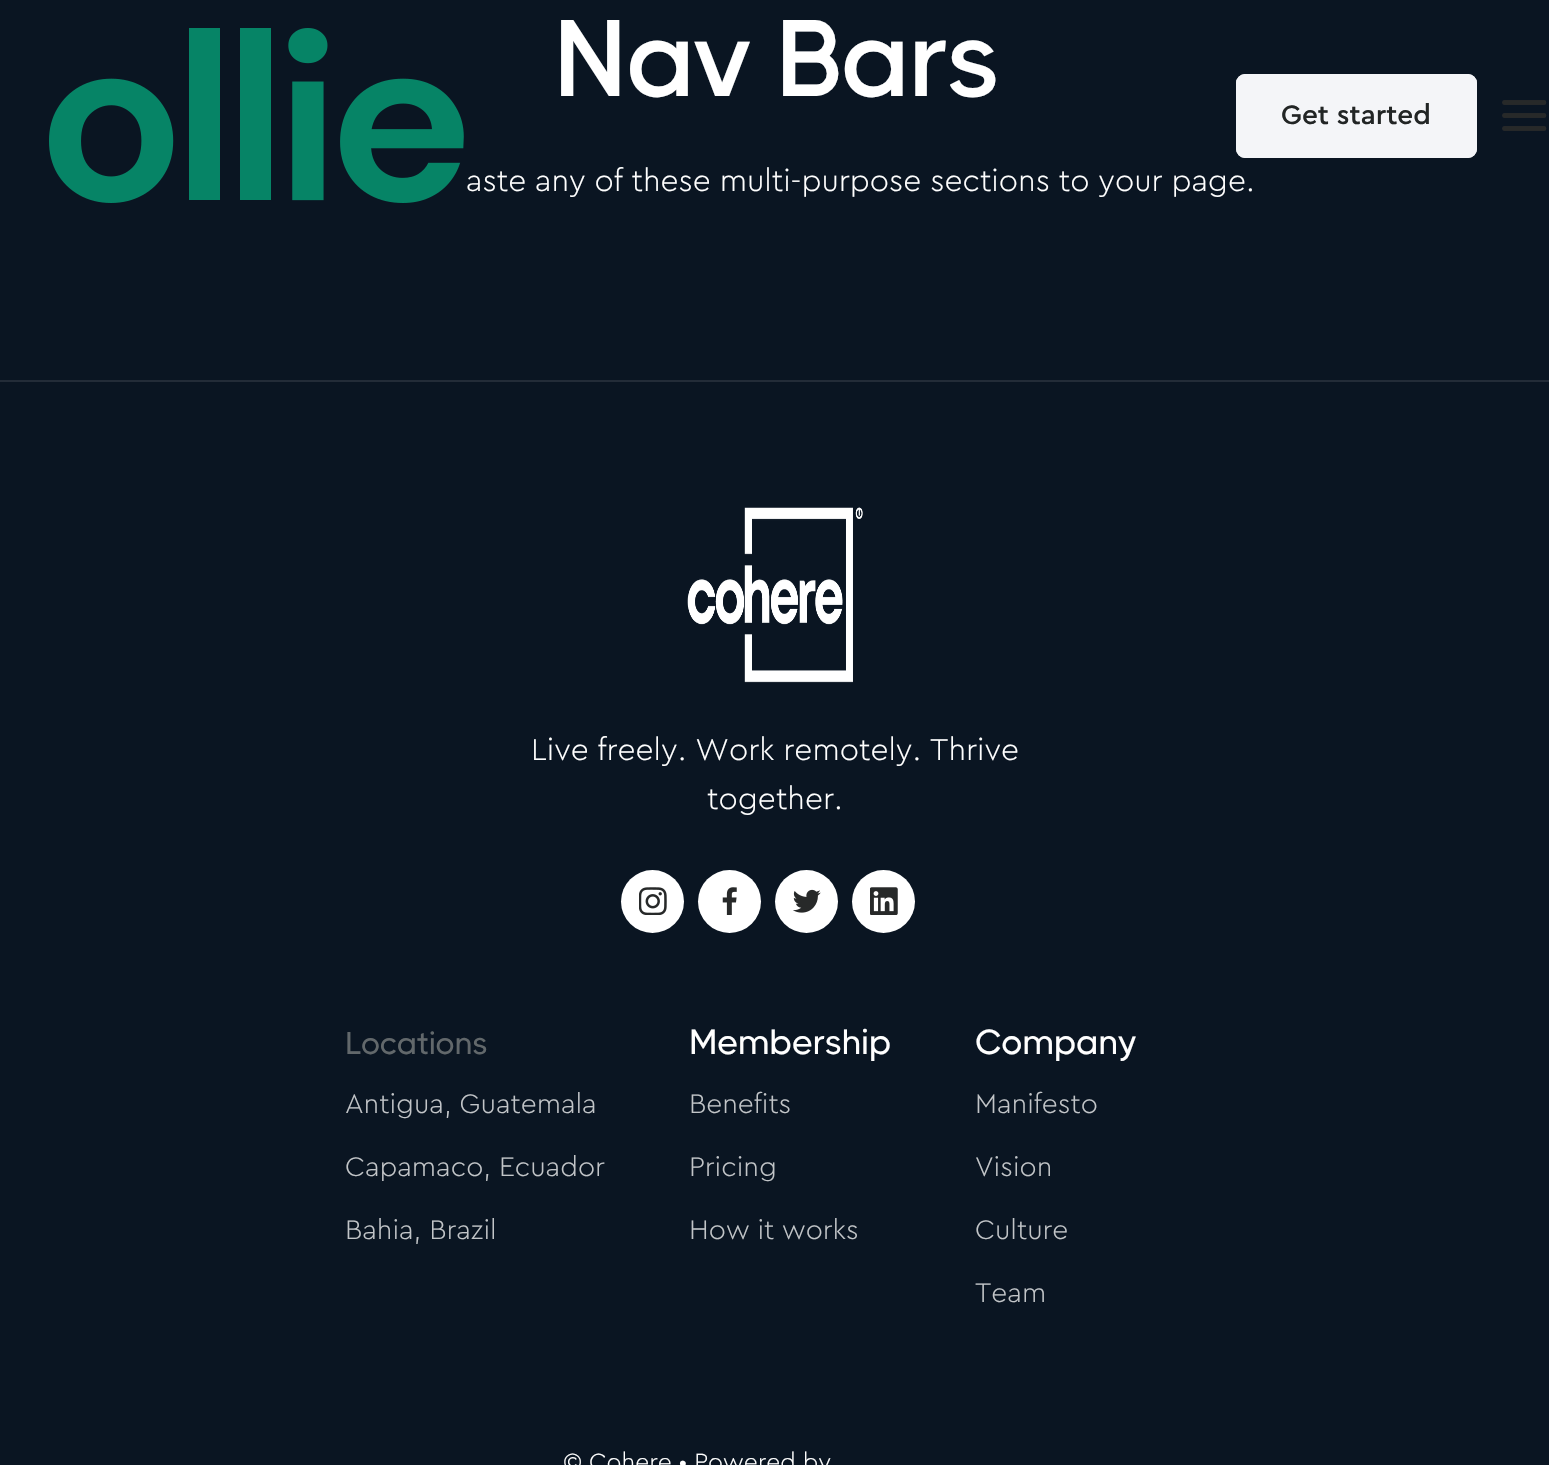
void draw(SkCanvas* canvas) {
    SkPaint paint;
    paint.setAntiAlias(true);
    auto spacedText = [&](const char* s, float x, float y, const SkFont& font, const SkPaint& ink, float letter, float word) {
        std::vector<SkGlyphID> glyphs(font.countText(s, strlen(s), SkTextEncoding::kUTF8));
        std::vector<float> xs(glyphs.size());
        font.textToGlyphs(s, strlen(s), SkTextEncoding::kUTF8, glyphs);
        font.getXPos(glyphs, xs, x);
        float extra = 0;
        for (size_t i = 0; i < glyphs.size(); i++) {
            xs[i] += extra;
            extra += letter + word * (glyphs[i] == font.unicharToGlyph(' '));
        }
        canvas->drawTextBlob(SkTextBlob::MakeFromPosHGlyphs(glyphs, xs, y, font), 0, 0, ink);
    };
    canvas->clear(0xFF0A1522);
    SkFont font1(fontMgr->matchFamilyStyle("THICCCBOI", SkFontStyle(600, SkFontStyle::kNormal_Width, SkFontStyle::kUpright_Slant)), 108.5f);
    font1.setSubpixel(true);
    paint.setColor(0xFFFFFFFF);
    spacedText("Nav Bars", 553, 96, font1, paint, -1.75f, 0);
    SkFont font2(fontMgr->matchFamilyStyle("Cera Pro", SkFontStyle(300, SkFontStyle::kNormal_Width, SkFontStyle::kUpright_Slant)), 31.5f);
    font2.setSubpixel(true);
    canvas->drawString("aste any of these multi-purpose sections to your page.", 466, 191, font2, paint);
    canvas->drawImageRect(SkImages::DeferredFromEncodedData(SkData::MakeFromFileName("img1.png")), SkRect::MakeXYWH(49, 28, 415, 175), SkSamplingOptions());
    paint.setStyle(SkPaint::kStroke_Style);
    paint.setStrokeWidth(4);
    paint.setColor(0xFFF4F5F8);
    canvas->drawRoundRect(SkRect::MakeXYWH(1238, 76, 237, 80), 7, 7, paint);
    paint.setStrokeWidth(4.4f);
    paint.setStrokeCap(SkPaint::kRound_Cap);
    paint.setStrokeJoin(SkPaint::kRound_Join);
    paint.setColor(0xFF272929);
    canvas->drawPath(SkPathBuilder().moveTo(1504.5f, 115.5f).lineTo(1544, 115.5f).moveTo(1504.5f, 102.5f).lineTo(1544, 102.5f).moveTo(1504.5f, 128.5f).lineTo(1544, 128.5f).detach(), paint);
    paint.setStyle(SkPaint::kFill_Style);
    paint.setColor(0xFFF4F5F8);
    canvas->drawRoundRect(SkRect::MakeXYWH(1238, 76, 237, 80), 7, 7, paint);
    paint.setStyle(SkPaint::kStroke_Style);
    paint.setStrokeWidth(4);
    paint.setStrokeCap(SkPaint::kButt_Cap);
    paint.setStrokeJoin(SkPaint::kMiter_Join);
    canvas->drawRoundRect(SkRect::MakeXYWH(1238, 76, 237, 80), 7, 7, paint);
    SkFont font3(fontMgr->matchFamilyStyle("Cera Pro", SkFontStyle(500, SkFontStyle::kNormal_Width, SkFontStyle::kUpright_Slant)), 28);
    font3.setSubpixel(true);
    paint.setStyle(SkPaint::kFill_Style);
    paint.setColor(0xFF222525);
    canvas->drawString("Get started", 1281, 124, font3, paint);
    paint.setStyle(SkPaint::kStroke_Style);
    paint.setStrokeWidth(4.4f);
    paint.setStrokeCap(SkPaint::kRound_Cap);
    paint.setStrokeJoin(SkPaint::kRound_Join);
    paint.setColor(0xFF272929);
    canvas->drawPath(SkPathBuilder().moveTo(1504.5f, 115.5f).lineTo(1544, 115.5f).moveTo(1504.5f, 102.5f).lineTo(1544, 102.5f).moveTo(1504.5f, 128.5f).lineTo(1544, 128.5f).detach(), paint);
    paint.setStyle(SkPaint::kFill_Style);
    paint.setColor(0xFF232C38);
    canvas->drawRect(SkRect::MakeXYWH(0, 380, 1549, 2), paint);
    canvas->drawImageRect(SkImages::DeferredFromEncodedData(SkData::MakeFromFileName("img2.png")), SkRect::MakeXYWH(687, 507, 176, 176), SkSamplingOptions());
    paint.setColor(0xFFFFFFFF);
    canvas->drawString("Live freely. Work remotely. Thrive", 531, 760, font2, paint);
    canvas->drawString("together.", 707, 809, font2, paint);
    canvas->drawCircle(652.5f, 901.5f, 31.5f, paint);
    canvas->drawImageRect(SkImages::DeferredFromEncodedData(SkData::MakeFromFileName("img3.png")), SkRect::MakeXYWH(639, 887, 28, 28), SkSamplingOptions());
    canvas->drawCircle(729.5f, 901.5f, 31.5f, paint);
    canvas->drawImageRect(SkImages::DeferredFromEncodedData(SkData::MakeFromFileName("img4.png")), SkRect::MakeXYWH(722, 887, 15, 28), SkSamplingOptions());
    canvas->drawCircle(806.5f, 901.5f, 31.5f, paint);
    canvas->drawImageRect(SkImages::DeferredFromEncodedData(SkData::MakeFromFileName("img5.png")), SkRect::MakeXYWH(793, 889, 28, 24), SkSamplingOptions());
    canvas->drawCircle(883.5f, 901.5f, 31.5f, paint);
    canvas->drawImageRect(SkImages::DeferredFromEncodedData(SkData::MakeFromFileName("img6.png")), SkRect::MakeXYWH(870, 887, 28, 28), SkSamplingOptions());
    SkFont font4(fontMgr->matchFamilyStyle("THICCCBOI", SkFontStyle(500, SkFontStyle::kNormal_Width, SkFontStyle::kUpright_Slant)), 31.5f);
    font4.setSubpixel(true);
    paint.setColor(0xFF62686B);
    spacedText("Locations", 345, 1054, font4, paint, -0.1f, 0);
    SkFont font5(fontMgr->matchFamilyStyle("Cera Pro", SkFontStyle(300, SkFontStyle::kNormal_Width, SkFontStyle::kUpright_Slant)), 28);
    font5.setSubpixel(true);
    paint.setColor(0xFFC2C5C8);
    canvas->drawString("Antigua, Guatemala", 345, 1113, font5, paint);
    canvas->drawString("Capamaco, Ecuador", 345, 1176, font5, paint);
    canvas->drawString("Bahia, Brazil", 345, 1239, font5, paint);
    SkFont font6(fontMgr->matchFamilyStyle("THICCCBOI", SkFontStyle(500, SkFontStyle::kNormal_Width, SkFontStyle::kUpright_Slant)), 35);
    font6.setSubpixel(true);
    paint.setColor(0xFFFFFFFF);
    spacedText("Membership", 689, 1054, font6, paint, -0.1f, 0);
    paint.setColor(0xFFC2C5C8);
    canvas->drawString("Benefits", 689, 1113, font5, paint);
    canvas->drawString("Pricing", 689, 1176, font5, paint);
    canvas->drawString("How it works", 689, 1239, font5, paint);
    paint.setColor(0xFFFFFFFF);
    spacedText("Company", 975, 1054, font6, paint, -0.1f, 0);
    paint.setColor(0xFFC2C5C8);
    canvas->drawString("Manifesto", 975, 1113, font5, paint);
    canvas->drawString("Vision", 975, 1176, font5, paint);
    canvas->drawString("Culture", 975, 1239, font5, paint);
    canvas->drawString("Team", 975, 1302, font5, paint);
    SkFont font7(fontMgr->matchFamilyStyle("Cera Pro", SkFontStyle(300, SkFontStyle::kNormal_Width, SkFontStyle::kUpright_Slant)), 24.5f);
    font7.setSubpixel(true);
    paint.setColor(0xFFFFFFFF);
    canvas->drawString("© Cohere • Powered by", 563, 1470, font7, paint);
}
